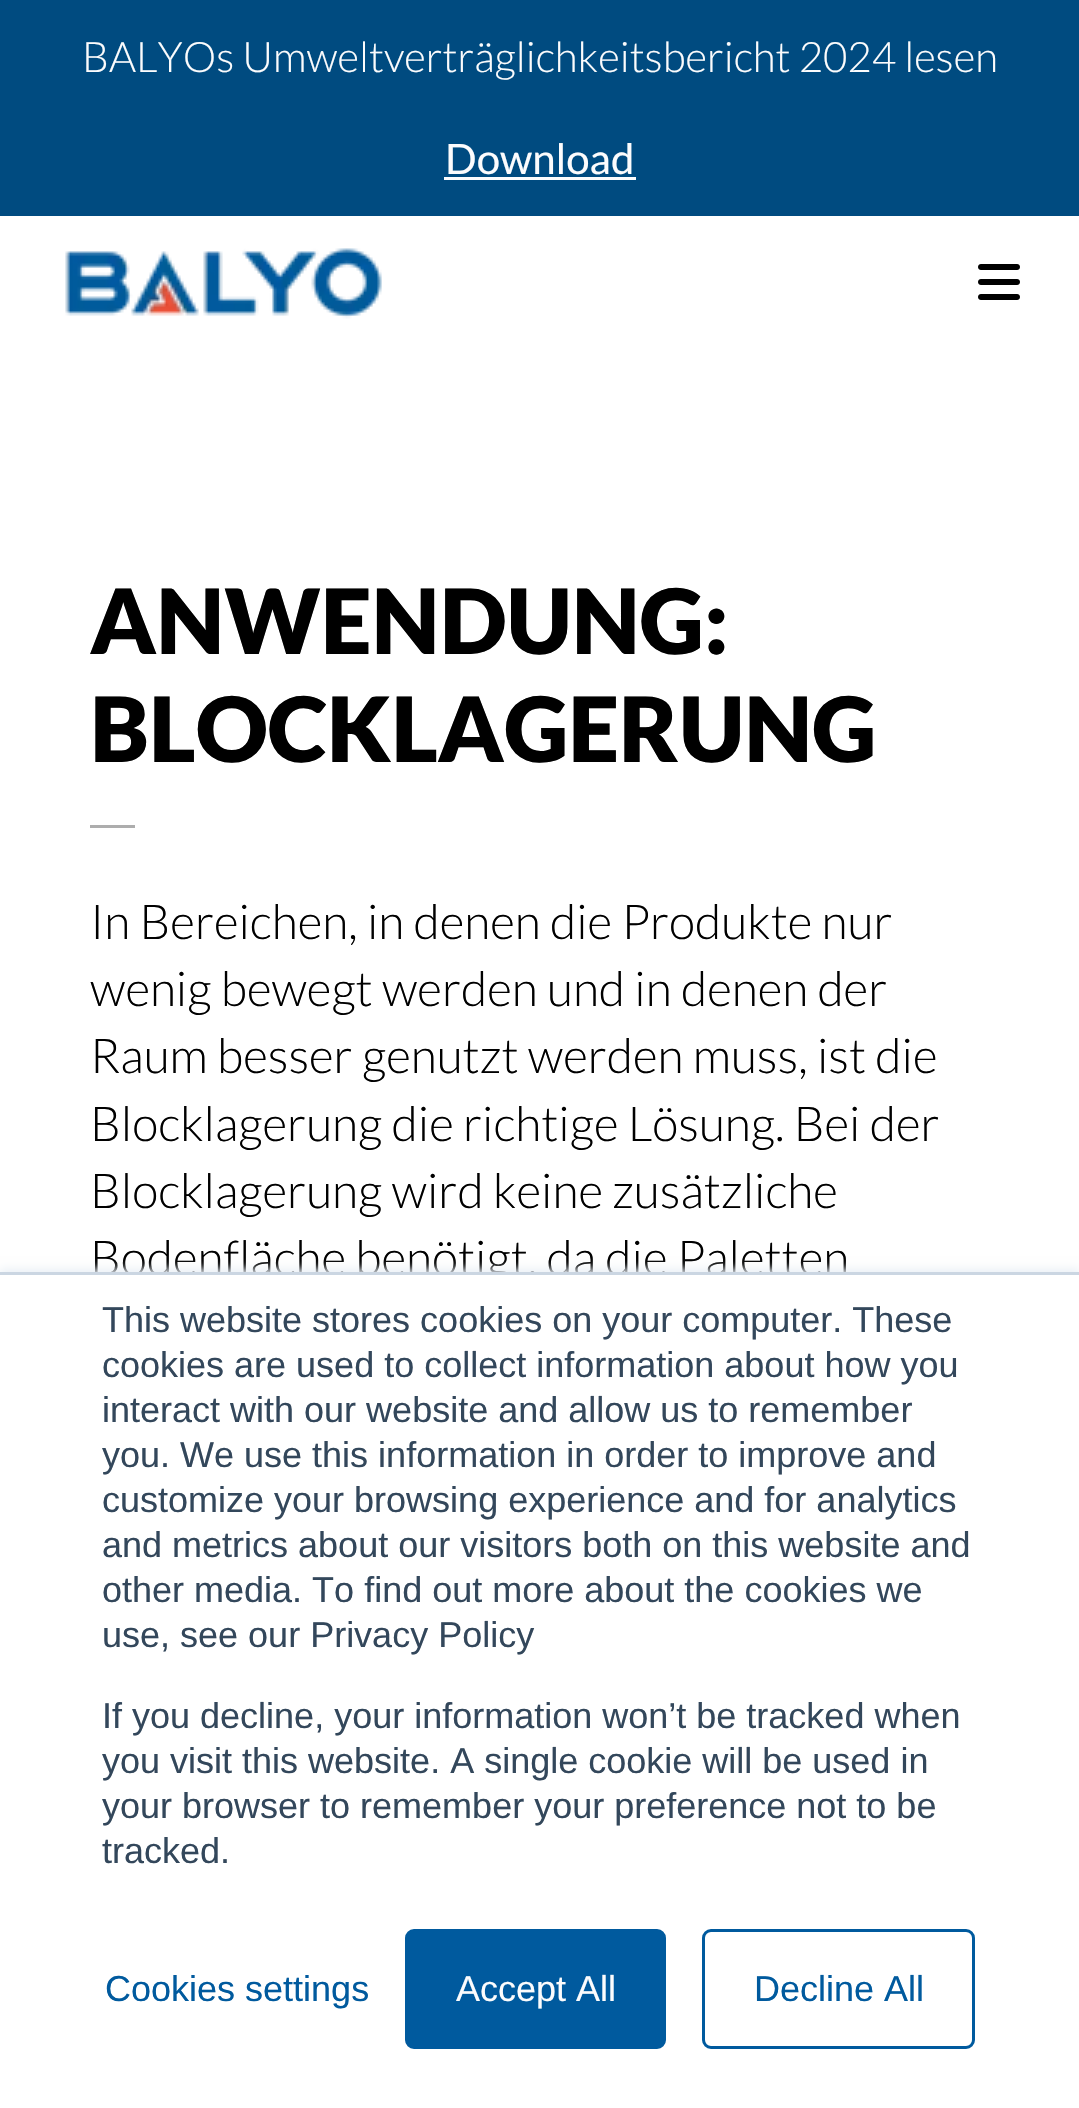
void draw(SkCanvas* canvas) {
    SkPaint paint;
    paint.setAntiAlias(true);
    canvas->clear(0xFFFFFFFF);
    paint.setColor(0xFF004B80);
    canvas->drawRect(SkRect::MakeXYWH(0, 0, 1079, 216), paint);
    SkFont font1(fontMgr->matchFamilyStyle("Lato", SkFontStyle(300, SkFontStyle::kNormal_Width, SkFontStyle::kUpright_Slant)), 42);
    font1.setSubpixel(true);
    paint.setColor(0xFFFCFCFD);
    canvas->drawString("BALYOs Umweltverträglichkeitsbericht 2024 lesen", 82, 72, font1, paint);
    SkFont font2(fontMgr->matchFamilyStyle("Lato", SkFontStyle::Normal()), 42);
    font2.setSubpixel(true);
    canvas->drawString("Download", 445, 174, font2, paint);
    canvas->drawRect(SkRect::MakeXYWH(444, 177, 192, 3), paint);
    canvas->drawImageRect(SkImages::DeferredFromEncodedData(SkData::MakeFromFileName("img1.png")), SkRect::MakeXYWH(65, 248, 317, 71), SkSamplingOptions());
    canvas->drawImageRect(SkImages::DeferredFromEncodedData(SkData::MakeFromFileName("img2.png")), SkRect::MakeXYWH(978, 264, 42, 36), SkSamplingOptions());
    SkFont font3(fontMgr->matchFamilyStyle("Lato", SkFontStyle(900, SkFontStyle::kNormal_Width, SkFontStyle::kUpright_Slant)), 90);
    font3.setSubpixel(true);
    paint.setColor(0xFF000000);
    canvas->drawString("ANWENDUNG:", 90, 654, font3, paint);
    canvas->drawString("BLOCKLAGERUNG", 90, 762, font3, paint);
    paint.setColor(0xFFADADAD);
    canvas->drawRect(SkRect::MakeXYWH(90, 825, 45, 3), paint);
    SkFont font4(fontMgr->matchFamilyStyle("Lato", SkFontStyle(300, SkFontStyle::kNormal_Width, SkFontStyle::kUpright_Slant)), 48);
    font4.setSubpixel(true);
    paint.setColor(0xFF000000);
    canvas->drawString("In Bereichen, in denen die Produkte nur", 90, 939, font4, paint);
    canvas->drawString("wenig bewegt werden und in denen der", 90, 1006, font4, paint);
    canvas->drawString("Raum besser genutzt werden muss, ist die", 90, 1073, font4, paint);
    canvas->drawString("Blocklagerung die richtige Lösung. Bei der", 90, 1141, font4, paint);
    canvas->drawString("Blocklagerung wird keine zusätzliche", 90, 1208, font4, paint);
    canvas->drawString("Bodenfläche benötigt, da die Paletten", 90, 1275, font4, paint);
    paint.setColor(0xFFEAF0F6);
    paint.setMaskFilter(SkMaskFilter::MakeBlur(kNormal_SkBlurStyle, 4.5f));
    canvas->drawRect(SkRect::MakeXYWH(0, 1269, 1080, 837), paint);
    paint.setMaskFilter(nullptr);
    paint.setColor(0xFFFFFFFF);
    canvas->drawRect(SkRect::MakeXYWH(0, 1275, 1079, 833), paint);
    paint.setColor(0xFFCBD6E2);
    canvas->drawRect(SkRect::MakeXYWH(0, 1272, 1079, 3), paint);
    SkFont font5(fontMgr->matchFamilyStyle("Liberation Sans", SkFontStyle::Normal()), 36);
    font5.setSubpixel(true);
    paint.setColor(0xFF33475B);
    canvas->drawString("This website stores cookies on your computer. These", 102, 1332, font5, paint);
    canvas->drawString("cookies are used to collect information about how you", 102, 1377, font5, paint);
    canvas->drawString("interact with our website and allow us to remember", 102, 1422, font5, paint);
    canvas->drawString("you. We use this information in order to improve and", 102, 1467, font5, paint);
    canvas->drawString("customize your browsing experience and for analytics", 102, 1512, font5, paint);
    canvas->drawString("and metrics about our visitors both on this website and", 102, 1557, font5, paint);
    canvas->drawString("other media. To find out more about the cookies we", 102, 1602, font5, paint);
    canvas->drawString("use, see our Privacy Policy", 102, 1647, font5, paint);
    canvas->drawString("If you decline, your information won’t be tracked when", 102, 1728, font5, paint);
    canvas->drawString("you visit this website. A single cookie will be used in", 102, 1773, font5, paint);
    canvas->drawString("your browser to remember your preference not to be", 102, 1818, font5, paint);
    canvas->drawString("tracked.", 102, 1863, font5, paint);
    paint.setColor(0xFF005A9E);
    canvas->drawString("Cookies settings", 105, 2001, font5, paint);
    canvas->drawRoundRect(SkRect::MakeXYWH(406.5f, 1930.5f, 258, 117), 7.5f, 7.5f, paint);
    paint.setStyle(SkPaint::kStroke_Style);
    paint.setStrokeWidth(3);
    canvas->drawRoundRect(SkRect::MakeXYWH(406.5f, 1930.5f, 258, 117), 7.5f, 7.5f, paint);
    paint.setStyle(SkPaint::kFill_Style);
    paint.setColor(0xFFFCFCFD);
    canvas->drawString("Accept All", 456, 2001, font5, paint);
    paint.setStyle(SkPaint::kStroke_Style);
    paint.setColor(0xFF005A9E);
    canvas->drawRoundRect(SkRect::MakeXYWH(703.5f, 1930.5f, 270, 117), 7.5f, 7.5f, paint);
    paint.setStyle(SkPaint::kFill_Style);
    canvas->drawString("Decline All", 754, 2001, font5, paint);
}
